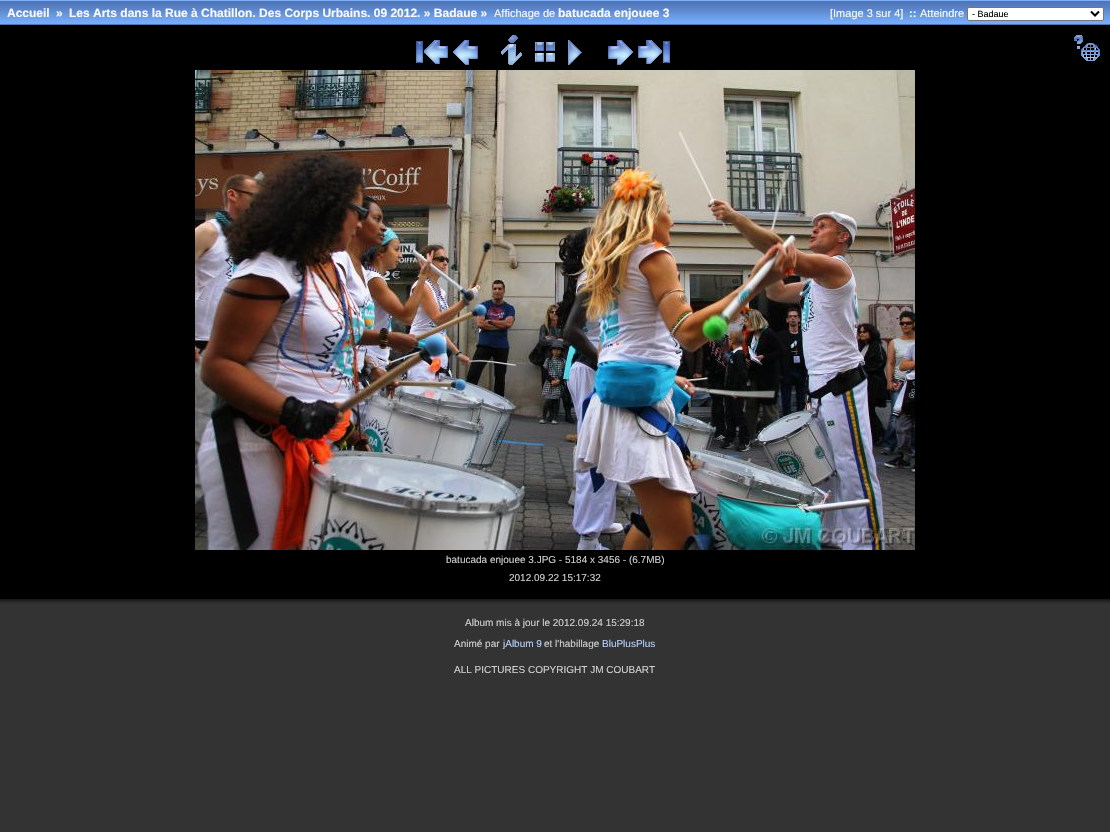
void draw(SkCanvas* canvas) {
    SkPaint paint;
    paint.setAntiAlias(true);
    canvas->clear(0xFF333333);
    canvas->drawImageRect(SkImages::DeferredFromEncodedData(SkData::MakeFromFileName("img1.png")), SkRect::MakeXYWH(0, 0, 1110, 25), SkSamplingOptions());
    SkFont font1(fontMgr->matchFamilyStyle("Liberation Sans", SkFontStyle::Bold()), 12);
    font1.setSubpixel(true);
    paint.setColor(0xFFFAFAFA);
    canvas->drawString("Accueil", 7, 17, font1, paint);
    canvas->drawString("»", 56, 17, font1, paint);
    canvas->drawString("Les Arts dans la Rue à Chatillon. Des Corps Urbains. 09 2012. » Badaue »", 69, 17, font1, paint);
    SkFont font2(fontMgr->matchFamilyStyle("Liberation Sans", SkFontStyle::Normal()), 11);
    font2.setSubpixel(true);
    canvas->drawString("Affichage de", 494, 17, font2, paint);
    canvas->drawString("batucada enjouee 3", 558, 17, font1, paint);
    canvas->drawString("[Image 3 sur 4]", 830, 17, font2, paint);
    SkFont font3(fontMgr->matchFamilyStyle("Liberation Sans", SkFontStyle::Bold()), 11);
    font3.setSubpixel(true);
    canvas->drawString("::", 909, 17, font3, paint);
    canvas->drawString("Atteindre", 920, 17, font2, paint);
    paint.setColor(0xFFFFFFFF);
    canvas->drawRoundRect(SkRect::MakeXYWH(967.5f, 7.5f, 136, 13), 1.5f, 1.5f, paint);
    paint.setStyle(SkPaint::kStroke_Style);
    paint.setStrokeWidth(1);
    paint.setColor(0xFF767676);
    canvas->drawRoundRect(SkRect::MakeXYWH(967.5f, 7.5f, 136, 13), 1.5f, 1.5f, paint);
    paint.setStrokeWidth(2);
    paint.setColor(0xFF000000);
    canvas->drawPath(SkPathBuilder().moveTo(1091, 11.5f).lineTo(1095, 15.5f).lineTo(1099, 11.5f).detach(), paint);
    SkFont font4(fontMgr->matchFamilyStyle("Liberation Sans", SkFontStyle::Normal()), 9);
    font4.setSubpixel(true);
    paint.setStyle(SkPaint::kFill_Style);
    canvas->drawString("- Badaue", 972, 17, font4, paint);
    canvas->drawRect(SkRect::MakeXYWH(0, 25, 1110, 574), paint);
    canvas->drawImageRect(SkImages::DeferredFromEncodedData(SkData::MakeFromFileName("img2.png")), SkRect::MakeXYWH(416, 40, 32, 24), SkSamplingOptions());
    canvas->drawImageRect(SkImages::DeferredFromEncodedData(SkData::MakeFromFileName("img3.png")), SkRect::MakeXYWH(453, 40, 25, 25), SkSamplingOptions());
    canvas->drawImageRect(SkImages::DeferredFromEncodedData(SkData::MakeFromFileName("img4.png")), SkRect::MakeXYWH(501, 35, 21, 30), SkSamplingOptions());
    canvas->drawImageRect(SkImages::DeferredFromEncodedData(SkData::MakeFromFileName("img5.png")), SkRect::MakeXYWH(535, 42, 20, 20), SkSamplingOptions());
    canvas->drawImageRect(SkImages::DeferredFromEncodedData(SkData::MakeFromFileName("img6.png")), SkRect::MakeXYWH(568, 40, 14, 25), SkSamplingOptions());
    canvas->drawImageRect(SkImages::DeferredFromEncodedData(SkData::MakeFromFileName("img7.png")), SkRect::MakeXYWH(608, 40, 25, 25), SkSamplingOptions());
    canvas->drawImageRect(SkImages::DeferredFromEncodedData(SkData::MakeFromFileName("img8.png")), SkRect::MakeXYWH(638, 40, 32, 24), SkSamplingOptions());
    canvas->drawImageRect(SkImages::DeferredFromEncodedData(SkData::MakeFromFileName("img9.png")), SkRect::MakeXYWH(1074, 35, 26, 26), SkSamplingOptions());
    canvas->drawImageRect(SkImages::DeferredFromEncodedData(SkData::MakeFromFileName("img10.png")), SkRect::MakeXYWH(195, 70, 720, 480), SkSamplingOptions());
    SkFont font5(fontMgr->matchFamilyStyle("Liberation Sans", SkFontStyle::Normal()), 10);
    font5.setSubpixel(true);
    paint.setColor(0xFFD0D0D0);
    canvas->drawString("batucada enjouee 3.JPG - 5184 x 3456 - (6.7MB)", 446, 563, font5, paint);
    canvas->drawString("2012.09.22 15:17:32", 509, 581, font5, paint);
    paint.setColor(0xFF191919);
    canvas->drawRect(SkRect::MakeXYWH(0, 599, 1110, 1), paint);
    paint.setColor(0xFF1F1F1F);
    canvas->drawRect(SkRect::MakeXYWH(0, 600, 1110, 1), paint);
    paint.setColor(0xFF262626);
    canvas->drawRect(SkRect::MakeXYWH(0, 601, 1110, 1), paint);
    paint.setColor(0xFF2B2B2B);
    canvas->drawRect(SkRect::MakeXYWH(0, 602, 1110, 1), paint);
    paint.setColor(0xFF2F2F2F);
    canvas->drawRect(SkRect::MakeXYWH(0, 603, 1110, 1), paint);
    paint.setColor(0xFFD0D0D0);
    canvas->drawString("Album mis à jour le 2012.09.24 15:29:18", 465, 626, font5, paint);
    canvas->drawString("Animé par", 454, 647, font5, paint);
    paint.setColor(0xFFB4D2F8);
    canvas->drawString("jAlbum 9", 503, 647, font5, paint);
    paint.setColor(0xFFD0D0D0);
    canvas->drawString("et l'habillage", 544, 647, font5, paint);
    paint.setColor(0xFFB4D2F8);
    canvas->drawString("BluPlusPlus", 602, 647, font5, paint);
    paint.setColor(0xFFD0D0D0);
    canvas->drawString("ALL PICTURES COPYRIGHT JM COUBART", 454, 673, font5, paint);
}
